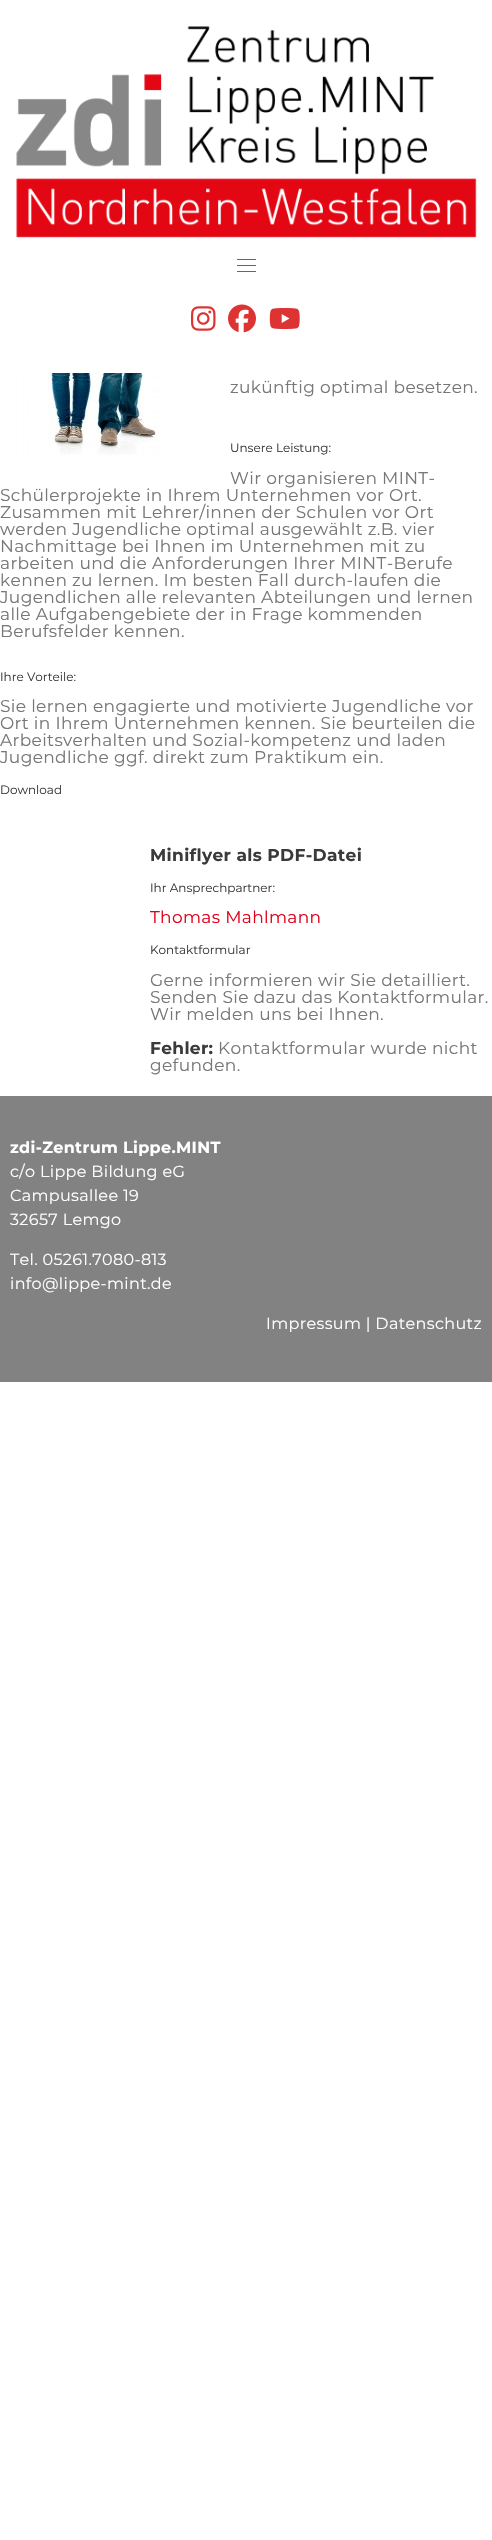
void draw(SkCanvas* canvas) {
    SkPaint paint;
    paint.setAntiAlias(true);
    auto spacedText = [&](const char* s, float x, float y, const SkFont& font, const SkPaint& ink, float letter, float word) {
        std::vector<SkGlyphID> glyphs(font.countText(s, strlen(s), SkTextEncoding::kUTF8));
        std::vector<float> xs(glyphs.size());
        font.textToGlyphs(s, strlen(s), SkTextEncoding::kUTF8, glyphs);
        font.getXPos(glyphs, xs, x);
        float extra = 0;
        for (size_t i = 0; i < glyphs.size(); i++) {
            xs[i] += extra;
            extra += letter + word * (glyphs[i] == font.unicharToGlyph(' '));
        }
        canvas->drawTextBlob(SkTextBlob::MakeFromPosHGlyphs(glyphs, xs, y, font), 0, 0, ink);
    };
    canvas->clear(0xFFFFFFFF);
    canvas->drawImageRect(SkImages::DeferredFromEncodedData(SkData::MakeFromFileName("img1.png")), SkRect::MakeXYWH(16, 26, 461, 212), SkSamplingOptions());
    paint.setColor(0xFFDD3333);
    canvas->drawRect(SkRect::MakeXYWH(237, 259, 19, 1), paint);
    canvas->drawRect(SkRect::MakeXYWH(237, 265, 19, 1), paint);
    canvas->drawRect(SkRect::MakeXYWH(237, 271, 19, 1), paint);
    canvas->drawImageRect(SkImages::DeferredFromEncodedData(SkData::MakeFromFileName("img2.png")), SkRect::MakeXYWH(191, 306, 25, 25), SkSamplingOptions());
    canvas->drawImageRect(SkImages::DeferredFromEncodedData(SkData::MakeFromFileName("img3.png")), SkRect::MakeXYWH(228, 304, 28, 29), SkSamplingOptions());
    canvas->drawImageRect(SkImages::DeferredFromEncodedData(SkData::MakeFromFileName("img4.png")), SkRect::MakeXYWH(269, 308, 31, 21), SkSamplingOptions());
    canvas->drawImageRect(SkImages::DeferredFromEncodedData(SkData::MakeFromFileName("img5.png")), SkRect::MakeXYWH(16, 373, 152, 82), SkSamplingOptions());
    SkFont font1(fontMgr->matchFamilyStyle("Montserrat", SkFontStyle(100, SkFontStyle::kNormal_Width, SkFontStyle::kUpright_Slant)), 17);
    font1.setSubpixel(true);
    paint.setColor(0xFF777777);
    spacedText("zukünftig optimal besetzen.", 230, 393, font1, paint, 0.35f, 0);
    SkFont font2(fontMgr->matchFamilyStyle("Montserrat", SkFontStyle(100, SkFontStyle::kNormal_Width, SkFontStyle::kUpright_Slant)), 12);
    font2.setSubpixel(true);
    paint.setColor(0xFF3A3A3A);
    canvas->drawString("Unsere Leistung:", 230, 452, font2, paint);
    paint.setColor(0xFF777777);
    spacedText("Wir organisieren MINT-", 230, 484, font1, paint, 0.35f, 0);
    spacedText("Schülerprojekte in Ihrem Unternehmen vor Ort.", 0, 501, font1, paint, 0.35f, 0);
    spacedText("Zusammen mit Lehrer/innen der Schulen vor Ort", 0, 518, font1, paint, 0.35f, 0);
    spacedText("werden Jugendliche optimal ausgewählt z.B. vier", 0, 535, font1, paint, 0.35f, 0);
    spacedText("Nachmittage bei Ihnen im Unternehmen mit zu", 0, 552, font1, paint, 0.35f, 0);
    spacedText("arbeiten und die Anforderungen Ihrer MINT-Berufe", 0, 569, font1, paint, 0.35f, 0);
    spacedText("kennen zu lernen. Im besten Fall durch-laufen die", 0, 586, font1, paint, 0.35f, 0);
    spacedText("Jugendlichen alle relevanten Abteilungen und lernen", 0, 603, font1, paint, 0.35f, 0);
    spacedText("alle Aufgabengebiete der in Frage kommenden", 0, 620, font1, paint, 0.35f, 0);
    spacedText("Berufsfelder kennen.", 0, 637, font1, paint, 0.35f, 0);
    paint.setColor(0xFF3A3A3A);
    canvas->drawString("Ihre Vorteile:", 0, 681, font2, paint);
    paint.setColor(0xFF777777);
    spacedText("Sie lernen engagierte und motivierte Jugendliche vor", 0, 712, font1, paint, 0.35f, 0);
    spacedText("Ort in Ihrem Unternehmen kennen. Sie beurteilen die", 0, 729, font1, paint, 0.35f, 0);
    spacedText("Arbeitsverhalten und Sozial-kompetenz und laden", 0, 746, font1, paint, 0.35f, 0);
    spacedText("Jugendliche ggf. direkt zum Praktikum ein.", 0, 763, font1, paint, 0.35f, 0);
    paint.setColor(0xFF3A3A3A);
    canvas->drawString("Download", 0, 794, font2, paint);
    SkFont font3(fontMgr->matchFamilyStyle("Montserrat", SkFontStyle::Bold()), 17);
    font3.setSubpixel(true);
    spacedText("Miniflyer als PDF-Datei", 150, 861, font3, paint, 0.35f, 0);
    canvas->drawString("Ihr Ansprechpartner:", 150, 892, font2, paint);
    paint.setColor(0xFFE2001A);
    spacedText("Thomas Mahlmann", 150, 923, font1, paint, 0.35f, 0);
    paint.setColor(0xFF3A3A3A);
    canvas->drawString("Kontaktformular", 150, 954, font2, paint);
    paint.setColor(0xFF777777);
    spacedText("Gerne informieren wir Sie detailliert.", 150, 986, font1, paint, 0.35f, 0);
    spacedText("Senden Sie dazu das Kontaktformular.", 150, 1003, font1, paint, 0.35f, 0);
    spacedText("Wir melden uns bei Ihnen.", 150, 1020, font1, paint, 0.35f, 0);
    paint.setColor(0xFF3A3A3A);
    spacedText("Fehler:", 150, 1054, font3, paint, 0.35f, 0);
    paint.setColor(0xFF777777);
    spacedText("Kontaktformular wurde nicht", 218, 1054, font1, paint, 0.35f, 0);
    spacedText("gefunden.", 150, 1071, font1, paint, 0.35f, 0);
    paint.setColor(0xFF828282);
    canvas->drawRect(SkRect::MakeXYWH(0, 1096, 492, 286), paint);
    SkFont font4(fontMgr->matchFamilyStyle("Montserrat", SkFontStyle::Bold()), 16);
    font4.setSubpixel(true);
    paint.setColor(0xFFFFFFFF);
    spacedText("zdi-Zentrum Lippe.MINT", 10, 1153, font4, paint, 0.35f, 0);
    SkFont font5(fontMgr->matchFamilyStyle("Montserrat", SkFontStyle(100, SkFontStyle::kNormal_Width, SkFontStyle::kUpright_Slant)), 16);
    font5.setSubpixel(true);
    spacedText("c/o Lippe Bildung eG", 10, 1177, font5, paint, 0.35f, 0);
    spacedText("Campusallee 19", 10, 1201, font5, paint, 0.35f, 0);
    spacedText("32657 Lemgo", 10, 1225, font5, paint, 0.35f, 0);
    spacedText("Tel. 05261.7080-813", 10, 1265, font5, paint, 0.35f, 0);
    spacedText("info@lippe-mint.de", 10, 1289, font5, paint, 0.35f, 0);
    spacedText("Impressum | Datenschutz", 266, 1329, font5, paint, 0.35f, 0);
}
